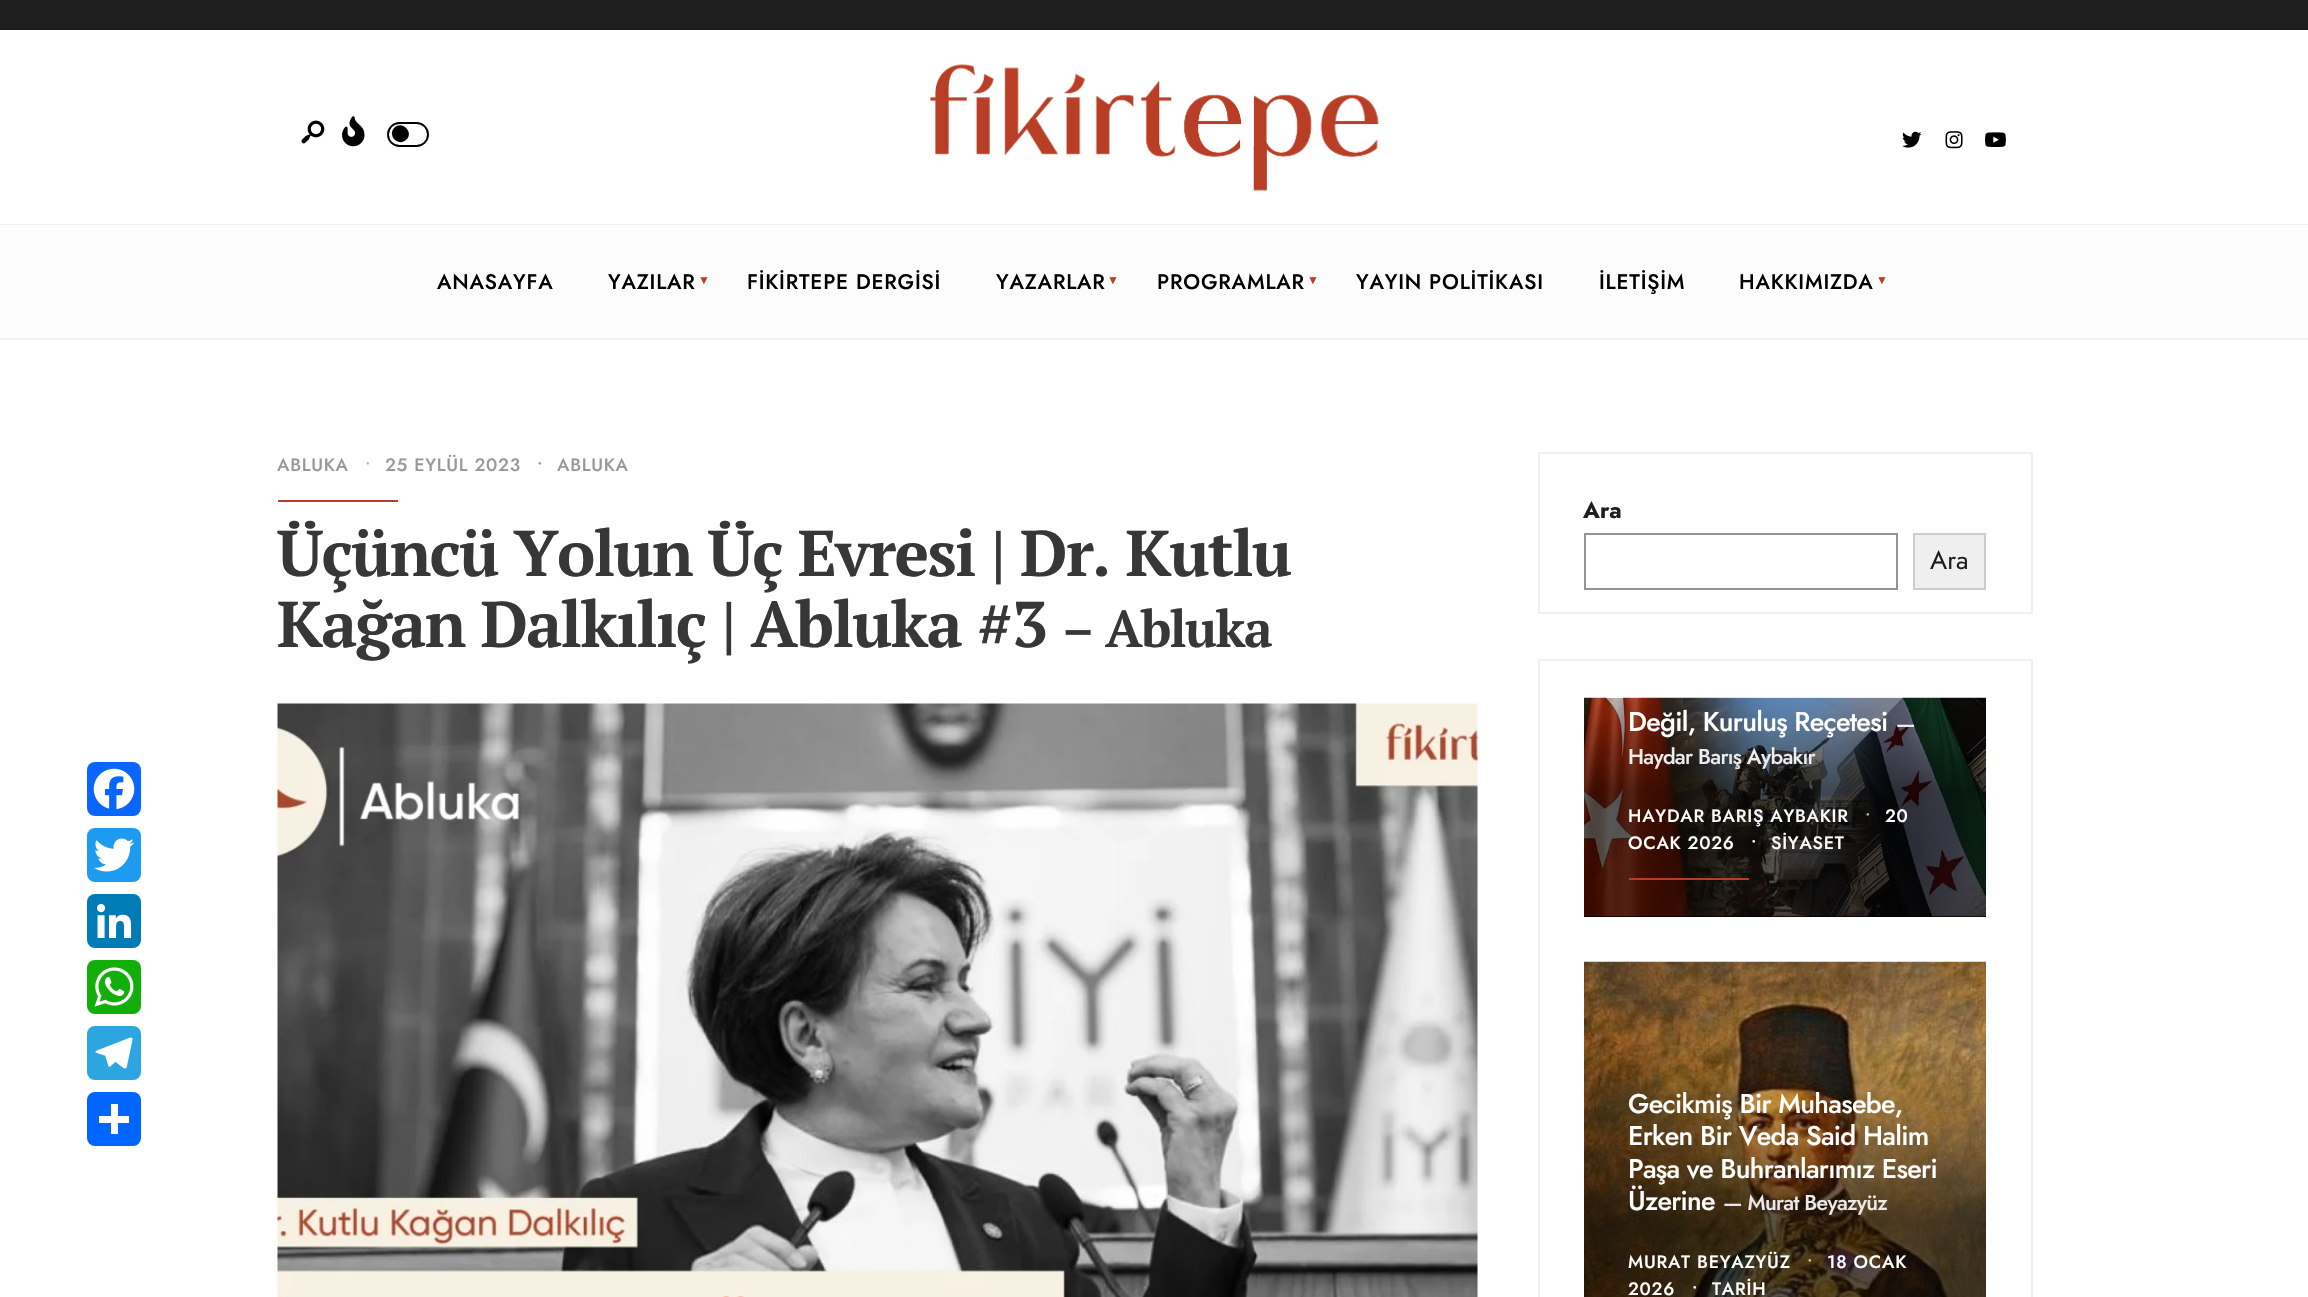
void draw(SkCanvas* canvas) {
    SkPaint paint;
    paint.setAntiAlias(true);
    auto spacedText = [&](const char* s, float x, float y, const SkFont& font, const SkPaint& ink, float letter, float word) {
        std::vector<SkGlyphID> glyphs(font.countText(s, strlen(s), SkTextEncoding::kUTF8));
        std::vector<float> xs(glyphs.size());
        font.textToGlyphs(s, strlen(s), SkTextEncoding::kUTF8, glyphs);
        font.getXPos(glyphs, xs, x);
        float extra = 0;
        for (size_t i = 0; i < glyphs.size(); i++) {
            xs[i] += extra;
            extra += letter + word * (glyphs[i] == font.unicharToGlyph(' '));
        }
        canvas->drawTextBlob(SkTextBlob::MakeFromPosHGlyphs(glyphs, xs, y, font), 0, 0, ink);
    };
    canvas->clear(0xFFFFFFFF);
    paint.setColor(0xFF0866FF);
    canvas->drawRoundRect(SkRect::MakeXYWH(87, 762, 54, 54), 8, 8, paint);
    canvas->drawImageRect(SkImages::DeferredFromEncodedData(SkData::MakeFromFileName("img1.png")), SkRect::MakeXYWH(93, 768, 42, 42), SkSamplingOptions());
    paint.setColor(0xFF1D9BF0);
    canvas->drawRoundRect(SkRect::MakeXYWH(87, 828, 54, 54), 8, 8, paint);
    canvas->drawImageRect(SkImages::DeferredFromEncodedData(SkData::MakeFromFileName("img2.png")), SkRect::MakeXYWH(94, 838, 41, 34), SkSamplingOptions());
    paint.setColor(0xFF007BB5);
    canvas->drawRoundRect(SkRect::MakeXYWH(87, 894, 54, 54), 8, 8, paint);
    canvas->drawImageRect(SkImages::DeferredFromEncodedData(SkData::MakeFromFileName("img3.png")), SkRect::MakeXYWH(97, 904, 35, 34), SkSamplingOptions());
    paint.setColor(0xFF12AF0A);
    canvas->drawRoundRect(SkRect::MakeXYWH(87, 960, 54, 54), 8, 8, paint);
    canvas->drawImageRect(SkImages::DeferredFromEncodedData(SkData::MakeFromFileName("img4.png")), SkRect::MakeXYWH(94, 967, 40, 40), SkSamplingOptions());
    paint.setColor(0xFF2CA5E0);
    canvas->drawRoundRect(SkRect::MakeXYWH(87, 1026, 54, 54), 8, 8, paint);
    canvas->drawImageRect(SkImages::DeferredFromEncodedData(SkData::MakeFromFileName("img5.png")), SkRect::MakeXYWH(95, 1037, 38, 32), SkSamplingOptions());
    paint.setColor(0xFF0166FF);
    canvas->drawRoundRect(SkRect::MakeXYWH(87, 1092, 54, 54), 8, 8, paint);
    paint.setColor(0xFFFFFFFF);
    canvas->drawRect(SkRect::MakeXYWH(111, 1104, 7, 30), paint);
    canvas->drawRect(SkRect::MakeXYWH(99, 1116, 30, 7), paint);
    paint.setColor(0xFF1E1E1E);
    canvas->drawRect(SkRect::MakeXYWH(0, 0, 2308, 30), paint);
    paint.setColor(0xFFEFEFEF);
    canvas->drawRect(SkRect::MakeXYWH(0, 224, 2308, 1), paint);
    canvas->drawImageRect(SkImages::DeferredFromEncodedData(SkData::MakeFromFileName("img6.png")), SkRect::MakeXYWH(301, 120, 24, 24), SkSamplingOptions());
    canvas->drawImageRect(SkImages::DeferredFromEncodedData(SkData::MakeFromFileName("img7.png")), SkRect::MakeXYWH(342, 116, 23, 31), SkSamplingOptions());
    paint.setStyle(SkPaint::kStroke_Style);
    paint.setStrokeWidth(2);
    paint.setColor(0xFF000000);
    canvas->drawRoundRect(SkRect::MakeXYWH(388, 123, 40, 23), 11.5f, 11.5f, paint);
    paint.setStyle(SkPaint::kFill_Style);
    canvas->drawPath(SkPathBuilder().moveTo(394.5f, 127.5f).cubicTo(402, 120, 414, 132, 406.5f, 139.5f).cubicTo(398.5f, 147.5f, 386.5f, 135.5f, 394.5f, 127.5f).close().detach(), paint);
    canvas->drawImageRect(SkImages::DeferredFromEncodedData(SkData::MakeFromFileName("img8.png")), SkRect::MakeXYWH(930, 64, 449, 127), SkSamplingOptions());
    canvas->drawImageRect(SkImages::DeferredFromEncodedData(SkData::MakeFromFileName("img9.png")), SkRect::MakeXYWH(1902, 131, 20, 17), SkSamplingOptions());
    canvas->drawImageRect(SkImages::DeferredFromEncodedData(SkData::MakeFromFileName("img10.png")), SkRect::MakeXYWH(1945, 131, 18, 18), SkSamplingOptions());
    canvas->drawImageRect(SkImages::DeferredFromEncodedData(SkData::MakeFromFileName("img11.png")), SkRect::MakeXYWH(1985, 132, 21, 15), SkSamplingOptions());
    paint.setColor(0xFFFCFCFC);
    canvas->drawRect(SkRect::MakeXYWH(0, 225, 2308, 113), paint);
    paint.setColor(0xFFEFEFEF);
    canvas->drawRect(SkRect::MakeXYWH(0, 338, 2308, 2), paint);
    SkFont font1(fontMgr->matchFamilyStyle("Jost", SkFontStyle(500, SkFontStyle::kNormal_Width, SkFontStyle::kUpright_Slant)), 21);
    font1.setSubpixel(true);
    paint.setColor(0xFF000000);
    spacedText("ANASAYFA", 437, 289, font1, paint, 0.8f, 0);
    spacedText("YAZILAR", 608, 289, font1, paint, 0.8f, 0);
    SkFont font2(fontMgr->matchFamilyStyle("Liberation Sans", SkFontStyle::Normal()), 12);
    font2.setSubpixel(true);
    paint.setColor(0xFFB93E26);
    spacedText("▼", 698, 284, font2, paint, 0.8f, 0);
    paint.setColor(0xFF000000);
    spacedText("FİKİRTEPE DERGİSİ", 747, 289, font1, paint, 0.8f, 0);
    spacedText("YAZARLAR", 996, 289, font1, paint, 0.8f, 0);
    paint.setColor(0xFFB93E26);
    spacedText("▼", 1107, 284, font2, paint, 0.8f, 0);
    paint.setColor(0xFF000000);
    spacedText("PROGRAMLAR", 1157, 289, font1, paint, 0.8f, 0);
    paint.setColor(0xFFB93E26);
    spacedText("▼", 1307, 284, font2, paint, 0.8f, 0);
    paint.setColor(0xFF000000);
    spacedText("YAYIN POLİTİKASI", 1356, 289, font1, paint, 0.8f, 0);
    spacedText("İLETİŞİM", 1599, 289, font1, paint, 0.8f, 0);
    spacedText("HAKKIMIZDA", 1739, 289, font1, paint, 0.8f, 0);
    paint.setColor(0xFFB93E26);
    spacedText("▼", 1876, 284, font2, paint, 0.8f, 0);
    SkFont font3(fontMgr->matchFamilyStyle("Jost", SkFontStyle(500, SkFontStyle::kNormal_Width, SkFontStyle::kUpright_Slant)), 18);
    font3.setSubpixel(true);
    paint.setColor(0xFF999999);
    spacedText("ABLUKA", 277, 471, font3, paint, 0.75f, 0);
    paint.setColor(0xFFB8B8B8);
    spacedText("•", 365, 471, font3, paint, 0.75f, 0);
    paint.setColor(0xFF999999);
    spacedText("25 EYLÜL 2023", 385, 471, font3, paint, 0.75f, 0);
    spacedText("•", 537, 471, font3, paint, 0.75f, 0);
    spacedText("ABLUKA", 557, 471, font3, paint, 0.75f, 0);
    paint.setColor(0xFFB93E26);
    canvas->drawRect(SkRect::MakeXYWH(278, 500, 120, 2), paint);
    SkFont font4(fontMgr->matchFamilyStyle("PT Serif", SkFontStyle::Bold()), 64.5f);
    font4.setSubpixel(true);
    paint.setColor(0xFF373737);
    spacedText("Üçüncü Yolun Üç Evresi | Dr. Kutlu", 277, 576, font4, paint, -1.6f, 0);
    spacedText("Kağan Dalkılıç | Abluka #3", 277, 647, font4, paint, -1.6f, 0);
    SkFont font5(fontMgr->matchFamilyStyle("PT Serif", SkFontStyle::Bold()), 51.5f);
    font5.setSubpixel(true);
    spacedText("– Abluka", 1062, 647, font5, paint, -1.6f, 0);
    canvas->drawImageRect(SkImages::DeferredFromEncodedData(SkData::MakeFromFileName("img12.png")), SkRect::MakeXYWH(277, 703, 1201, 594), SkSamplingOptions());
    paint.setStyle(SkPaint::kStroke_Style);
    paint.setColor(0xFFEFEFEF);
    canvas->drawRect(SkRect::MakeXYWH(1539, 453, 493, 160), paint);
    SkFont font6(fontMgr->matchFamilyStyle("Jost", SkFontStyle::Bold()), 23);
    font6.setSubpixel(true);
    paint.setStyle(SkPaint::kFill_Style);
    paint.setColor(0xFF1E1E1E);
    canvas->drawString("Ara", 1583, 518, font6, paint);
    paint.setStyle(SkPaint::kStroke_Style);
    paint.setColor(0xFF949494);
    canvas->drawRect(SkRect::MakeXYWH(1585, 534, 312, 55), paint);
    paint.setStyle(SkPaint::kFill_Style);
    paint.setColor(0xFFEFEFEF);
    canvas->drawRect(SkRect::MakeXYWH(1914, 534, 71, 55), paint);
    paint.setStyle(SkPaint::kStroke_Style);
    paint.setColor(0xFFCCCCCC);
    canvas->drawRect(SkRect::MakeXYWH(1914, 534, 71, 55), paint);
    SkFont font7(fontMgr->matchFamilyStyle("Jost", SkFontStyle::Normal()), 26);
    font7.setSubpixel(true);
    paint.setStyle(SkPaint::kFill_Style);
    paint.setColor(0xFF1E1E1E);
    canvas->drawString("Ara", 1930, 569, font7, paint);
    paint.setStyle(SkPaint::kStroke_Style);
    paint.setColor(0xFFEFEFEF);
    canvas->drawRect(SkRect::MakeXYWH(1539, 660, 493, 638), paint);
    paint.setStyle(SkPaint::kFill_Style);
    paint.setColor(0xFF000000);
    canvas->drawRect(SkRect::MakeXYWH(1584, 916, 402, 1), paint);
    canvas->drawImageRect(SkImages::DeferredFromEncodedData(SkData::MakeFromFileName("img13.png")), SkRect::MakeXYWH(1584, 697, 402, 220), SkSamplingOptions());
    {
        const SkColor colors[] = {0x00000000, 0xA6000000, 0xA6000000};
        const float stops[] = {0, 0.56f, 1};
        const SkPoint ends[] = {{1785, 630}, {1785, 917}};
        paint.setShader(SkGradientShader::MakeLinear(ends, colors, stops, 3, SkTileMode::kClamp));
        paint.setAlpha(255);
    }
    canvas->drawRect(SkRect::MakeXYWH(1584, 698, 402, 219), paint);
    SkFont font8(fontMgr->matchFamilyStyle("Jost", SkFontStyle(500, SkFontStyle::kNormal_Width, SkFontStyle::kUpright_Slant)), 27);
    font8.setSubpixel(true);
    paint.setShader(nullptr);
    paint.setColor(0xFFFFFFFF);
    spacedText("Değil, Kuruluş Reçetesi", 1628, 731, font8, paint, -0.7f, 0);
    SkFont font9(fontMgr->matchFamilyStyle("Jost", SkFontStyle(500, SkFontStyle::kNormal_Width, SkFontStyle::kUpright_Slant)), 21.5f);
    font9.setSubpixel(true);
    paint.setColor(0xFFEDEDEF);
    spacedText("—", 1896, 731, font9, paint, -0.7f, 0);
    spacedText("Haydar Barış Aybakır", 1628, 764, font9, paint, -0.7f, 0);
    paint.setColor(0xFFFFFFFF);
    spacedText("HAYDAR BARIŞ AYBAKIR", 1628, 822, font3, paint, 0.75f, 0);
    paint.setColor(0xFFB8B8B8);
    spacedText("•", 1865, 822, font3, paint, 0.75f, 0);
    paint.setColor(0xFFFFFFFF);
    spacedText("20", 1885, 822, font3, paint, 0.75f, 0);
    spacedText("OCAK 2026", 1628, 849, font3, paint, 0.75f, 0);
    spacedText("•", 1751, 849, font3, paint, 0.75f, 0);
    spacedText("SİYASET", 1771, 849, font3, paint, 0.75f, 0);
    paint.setColor(0xFFB93E26);
    canvas->drawRect(SkRect::MakeXYWH(1629, 878, 120, 2), paint);
    canvas->drawImageRect(SkImages::DeferredFromEncodedData(SkData::MakeFromFileName("img14.png")), SkRect::MakeXYWH(1584, 961, 402, 336), SkSamplingOptions());
    paint.setColor(0xFFFFFFFF);
    spacedText("Gecikmiş Bir Muhasebe,", 1628, 1113, font8, paint, -0.7f, 0);
    spacedText("Erken Bir Veda Said Halim", 1628, 1145, font8, paint, -0.7f, 0);
    spacedText("Paşa ve Buhranlarımız Eseri", 1628, 1178, font8, paint, -0.7f, 0);
    spacedText("Üzerine", 1628, 1210, font8, paint, -0.7f, 0);
    paint.setColor(0xFFECEAE8);
    spacedText("— Murat Beyazyüz", 1723, 1210, font9, paint, -0.7f, 0);
    paint.setColor(0xFFFFFFFF);
    spacedText("MURAT BEYAZYÜZ", 1628, 1268, font3, paint, 0.75f, 0);
    paint.setColor(0xFFCAC5B8);
    spacedText("•", 1807, 1268, font3, paint, 0.75f, 0);
    paint.setColor(0xFFFFFFFF);
    spacedText("18 OCAK", 1827, 1268, font3, paint, 0.75f, 0);
    spacedText("2026", 1628, 1295, font3, paint, 0.75f, 0);
    spacedText("•", 1692, 1295, font3, paint, 0.75f, 0);
    spacedText("TARİH", 1712, 1295, font3, paint, 0.75f, 0);
}
